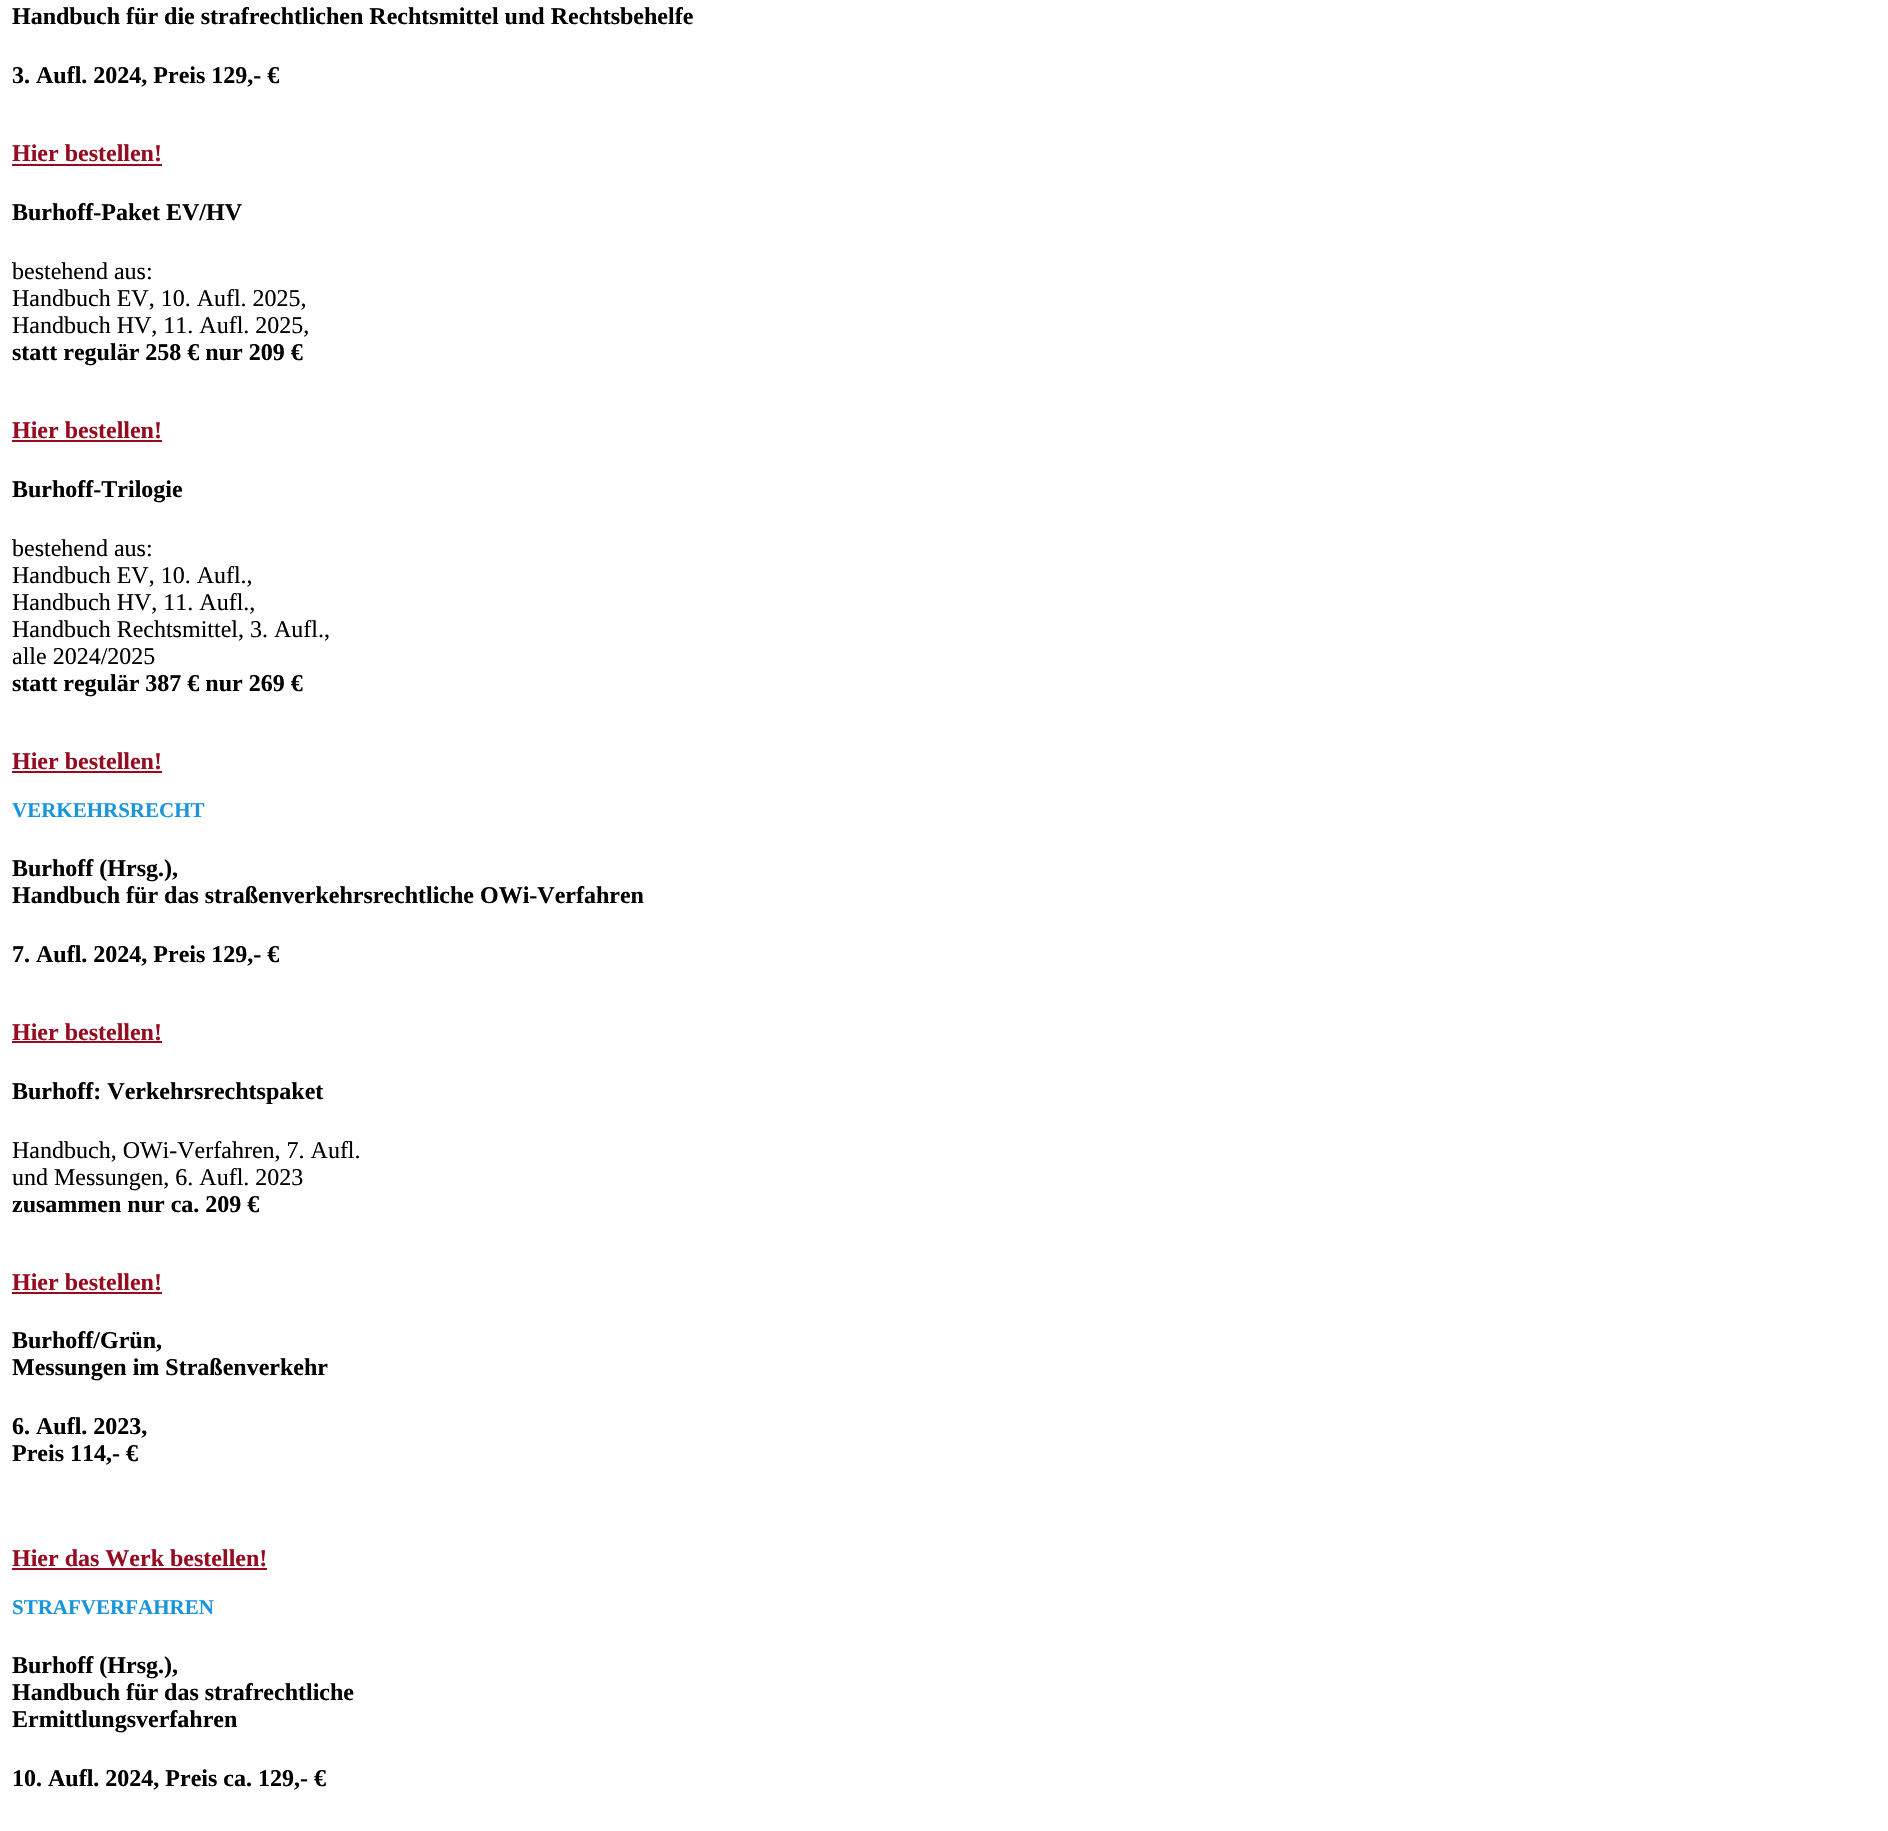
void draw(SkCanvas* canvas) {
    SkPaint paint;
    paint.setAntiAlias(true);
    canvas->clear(0xFFFFFFFF);
    SkFont font1(fontMgr->matchFamilyStyle("Liberation Serif", SkFontStyle::Bold()), 24);
    font1.setSubpixel(true);
    paint.setColor(0xFF000000);
    canvas->drawString("Handbuch für die strafrechtlichen Rechtsmittel und Rechtsbehelfe", 12, 24, font1, paint);
    canvas->drawString("3. Aufl. 2024, Preis 129,- €", 12, 83, font1, paint);
    paint.setColor(0xFF960B20);
    canvas->drawString("Hier bestellen!", 12, 161, font1, paint);
    canvas->drawRect(SkRect::MakeXYWH(12, 164, 150, 2), paint);
    paint.setColor(0xFF000000);
    canvas->drawString("Burhoff-Paket EV/HV", 12, 220, font1, paint);
    SkFont font2(fontMgr->matchFamilyStyle("Liberation Serif", SkFontStyle::Normal()), 24);
    font2.setSubpixel(true);
    canvas->drawString("bestehend aus:", 12, 279, font2, paint);
    canvas->drawString("Handbuch EV, 10. Aufl. 2025,", 12, 306, font2, paint);
    canvas->drawString("Handbuch HV, 11. Aufl. 2025,", 12, 333, font2, paint);
    canvas->drawString("statt regulär 258 € nur 209 €", 12, 360, font1, paint);
    paint.setColor(0xFF960B20);
    canvas->drawString("Hier bestellen!", 12, 438, font1, paint);
    canvas->drawRect(SkRect::MakeXYWH(12, 440, 150, 2), paint);
    paint.setColor(0xFF000000);
    canvas->drawString("Burhoff-Trilogie", 12, 497, font1, paint);
    canvas->drawString("bestehend aus:", 12, 556, font2, paint);
    canvas->drawString("Handbuch EV, 10. Aufl.,", 12, 583, font2, paint);
    canvas->drawString("Handbuch HV, 11. Aufl.,", 12, 610, font2, paint);
    canvas->drawString("Handbuch Rechtsmittel, 3. Aufl.,", 12, 637, font2, paint);
    canvas->drawString("alle 2024/2025", 12, 664, font2, paint);
    canvas->drawString("statt regulär 387 € nur 269 €", 12, 691, font1, paint);
    paint.setColor(0xFF960B20);
    canvas->drawString("Hier bestellen!", 12, 769, font1, paint);
    canvas->drawRect(SkRect::MakeXYWH(12, 771, 150, 2), paint);
    SkFont font3(fontMgr->matchFamilyStyle("Liberation Serif", SkFontStyle::Bold()), 21);
    font3.setSubpixel(true);
    paint.setColor(0xFF1995DC);
    canvas->drawString("VERKEHRSRECHT", 12, 817, font3, paint);
    paint.setColor(0xFF000000);
    canvas->drawString("Burhoff (Hrsg.),", 12, 876, font1, paint);
    canvas->drawString("Handbuch für das straßenverkehrsrechtliche OWi-Verfahren", 12, 903, font1, paint);
    canvas->drawString("7. Aufl. 2024, Preis 129,- €", 12, 962, font1, paint);
    paint.setColor(0xFF960B20);
    canvas->drawString("Hier bestellen!", 12, 1040, font1, paint);
    canvas->drawRect(SkRect::MakeXYWH(12, 1041, 150, 2), paint);
    paint.setColor(0xFF000000);
    canvas->drawString("Burhoff: Verkehrsrechtspaket", 12, 1099, font1, paint);
    canvas->drawString("Handbuch, OWi-Verfahren, 7. Aufl.", 12, 1158, font2, paint);
    canvas->drawString("und Messungen, 6. Aufl. 2023", 12, 1185, font2, paint);
    canvas->drawString("zusammen nur ca. 209 €", 12, 1212, font1, paint);
    paint.setColor(0xFF960B20);
    canvas->drawString("Hier bestellen!", 12, 1290, font1, paint);
    canvas->drawRect(SkRect::MakeXYWH(12, 1292, 150, 2), paint);
    paint.setColor(0xFF000000);
    canvas->drawString("Burhoff/Grün,", 12, 1348, font1, paint);
    canvas->drawString("Messungen im Straßenverkehr", 12, 1375, font1, paint);
    canvas->drawString("6. Aufl. 2023,", 12, 1434, font1, paint);
    canvas->drawString("Preis 114,- €", 12, 1461, font1, paint);
    paint.setColor(0xFF960B20);
    canvas->drawString("Hier das Werk bestellen!", 12, 1566, font1, paint);
    canvas->drawRect(SkRect::MakeXYWH(12, 1568, 255, 2), paint);
    paint.setColor(0xFF1995DC);
    canvas->drawString("STRAFVERFAHREN", 12, 1614, font3, paint);
    paint.setColor(0xFF000000);
    canvas->drawString("Burhoff (Hrsg.),", 12, 1673, font1, paint);
    canvas->drawString("Handbuch für das strafrechtliche", 12, 1700, font1, paint);
    canvas->drawString("Ermittlungsverfahren", 12, 1727, font1, paint);
    canvas->drawString("10. Aufl. 2024, Preis ca. 129,- €", 12, 1786, font1, paint);
}
